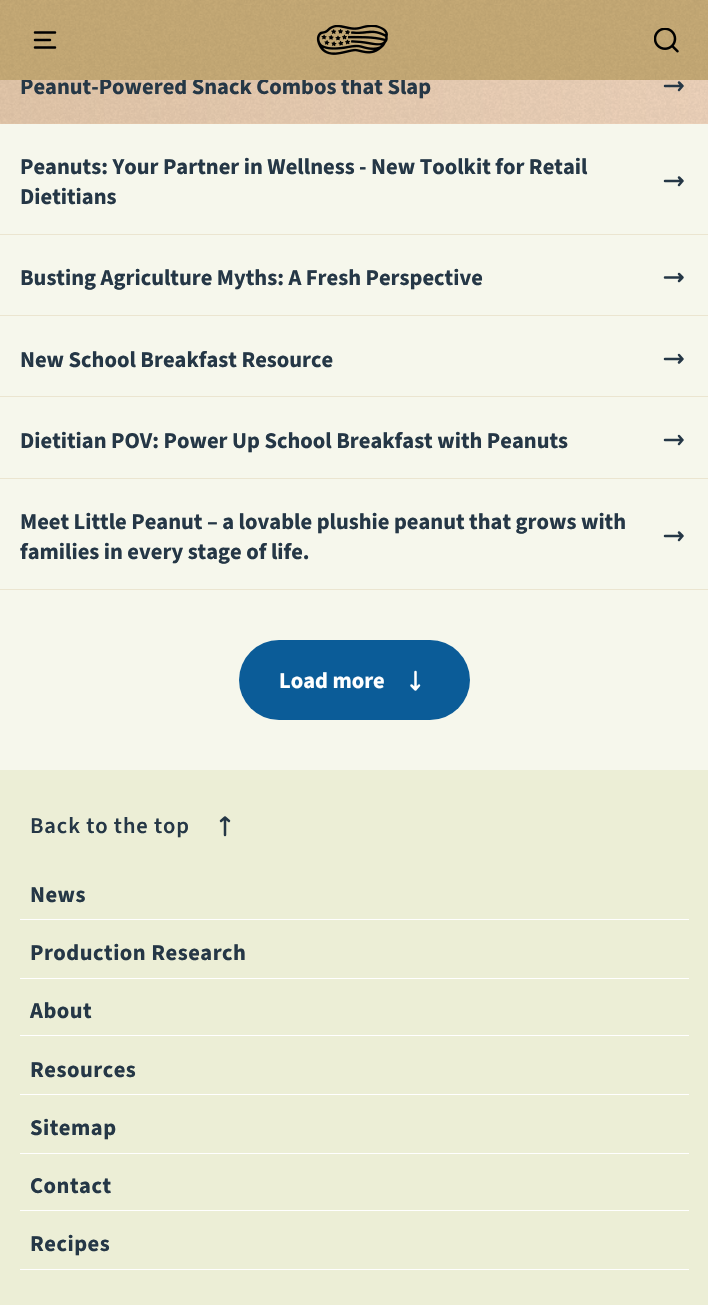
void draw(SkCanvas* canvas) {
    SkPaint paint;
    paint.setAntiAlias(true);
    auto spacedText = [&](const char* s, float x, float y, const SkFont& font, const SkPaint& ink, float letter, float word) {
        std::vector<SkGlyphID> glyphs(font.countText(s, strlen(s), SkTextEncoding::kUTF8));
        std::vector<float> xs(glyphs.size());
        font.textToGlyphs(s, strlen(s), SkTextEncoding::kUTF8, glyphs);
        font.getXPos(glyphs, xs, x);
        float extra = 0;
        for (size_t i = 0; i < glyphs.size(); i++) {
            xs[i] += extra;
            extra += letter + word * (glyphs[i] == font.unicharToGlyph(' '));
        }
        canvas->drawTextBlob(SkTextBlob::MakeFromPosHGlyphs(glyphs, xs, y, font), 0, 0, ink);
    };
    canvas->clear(0xFFF6F7EC);
    {
        const SkColor colors[] = {0xFFE2C6A9, 0xFFEDD2BA};
        const float stops[] = {0, 1};
        const SkPoint ends[] = {{0, 86}, {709, 86}};
        paint.setShader(SkGradientShader::MakeLinear(ends, colors, stops, 2, SkTileMode::kClamp));
        paint.setAlpha(255);
    }
    canvas->drawRect(SkRect::MakeXYWH(0, 80, 708, 44), paint);
    canvas->drawImageRect(SkImages::DeferredFromEncodedData(SkData::MakeFromFileName("img4.png")), SkRect::MakeXYWH(0, 80, 708, 44), SkSamplingOptions());
    SkFont font1(fontMgr->matchFamilyStyle("Source Sans 3", SkFontStyle::Bold()), 22.5f);
    font1.setSubpixel(true);
    paint.setShader(nullptr);
    paint.setColor(0xFF253746);
    canvas->drawString("Peanut-Powered Snack Combos that Slap", 20, 94, font1, paint);
    paint.setColor(0xFFC6AA76);
    canvas->drawRect(SkRect::MakeXYWH(0, 0, 708, 80), paint);
    canvas->drawImageRect(SkImages::DeferredFromEncodedData(SkData::MakeFromFileName("img1.png")), SkRect::MakeXYWH(0, 0, 708, 80), SkSamplingOptions());
    paint.setStyle(SkPaint::kStroke_Style);
    paint.setStrokeWidth(2.5f);
    paint.setStrokeCap(SkPaint::kRound_Cap);
    paint.setStrokeJoin(SkPaint::kRound_Join);
    paint.setColor(0xFF000000);
    canvas->drawPath(SkPathBuilder().moveTo(35, 40).lineTo(50, 40).moveTo(35, 32.5f).lineTo(55, 32.5f).moveTo(35, 47.5f).lineTo(55, 47.5f).detach(), paint);
    canvas->drawImageRect(SkImages::DeferredFromEncodedData(SkData::MakeFromFileName("img2.png")), SkRect::MakeXYWH(316, 25, 72, 30), SkSamplingOptions());
    canvas->drawImageRect(SkImages::DeferredFromEncodedData(SkData::MakeFromFileName("img3.png")), SkRect::MakeXYWH(654, 28, 25, 25), SkSamplingOptions());
    paint.setColor(0xFF253746);
    canvas->drawPath(SkPathBuilder().moveTo(665, 86).lineTo(682.5f, 86).moveTo(679, 82.5f).lineTo(682.5f, 86).lineTo(679, 90).detach(), paint);
    paint.setStyle(SkPaint::kFill_Style);
    paint.setColor(0xFFEBE5D0);
    canvas->drawRect(SkRect::MakeXYWH(0, 234, 708, 1), paint);
    paint.setColor(0xFF253746);
    canvas->drawString("Peanuts: Your Partner in Wellness - New Toolkit for Retail", 20, 174, font1, paint);
    canvas->drawString("Dietitians", 20, 204, font1, paint);
    paint.setStyle(SkPaint::kStroke_Style);
    canvas->drawPath(SkPathBuilder().moveTo(665, 181).lineTo(682.5f, 181).moveTo(679, 177.5f).lineTo(682.5f, 181).lineTo(679, 185).detach(), paint);
    paint.setStyle(SkPaint::kFill_Style);
    paint.setColor(0xFFEBE5D0);
    canvas->drawRect(SkRect::MakeXYWH(0, 315, 708, 1), paint);
    paint.setColor(0xFF253746);
    canvas->drawString("Busting Agriculture Myths: A Fresh Perspective", 20, 285, font1, paint);
    paint.setStyle(SkPaint::kStroke_Style);
    canvas->drawPath(SkPathBuilder().moveTo(665, 277.5f).lineTo(682.5f, 277.5f).moveTo(679, 274).lineTo(682.5f, 277.5f).lineTo(679, 281).detach(), paint);
    paint.setStyle(SkPaint::kFill_Style);
    paint.setColor(0xFFEBE5D0);
    canvas->drawRect(SkRect::MakeXYWH(0, 396, 708, 1), paint);
    paint.setColor(0xFF253746);
    canvas->drawString("New School Breakfast Resource", 20, 367, font1, paint);
    paint.setStyle(SkPaint::kStroke_Style);
    canvas->drawPath(SkPathBuilder().moveTo(665, 359).lineTo(682.5f, 359).moveTo(679, 355).lineTo(682.5f, 359).lineTo(679, 362.5f).detach(), paint);
    paint.setStyle(SkPaint::kFill_Style);
    paint.setColor(0xFFEBE5D0);
    canvas->drawRect(SkRect::MakeXYWH(0, 478, 708, 1), paint);
    paint.setColor(0xFF253746);
    canvas->drawString("Dietitian POV: Power Up School Breakfast with Peanuts", 20, 448, font1, paint);
    paint.setStyle(SkPaint::kStroke_Style);
    canvas->drawPath(SkPathBuilder().moveTo(665, 440).lineTo(682.5f, 440).moveTo(679, 436).lineTo(682.5f, 440).lineTo(679, 444).detach(), paint);
    paint.setStyle(SkPaint::kFill_Style);
    paint.setColor(0xFFEBE5D0);
    canvas->drawRect(SkRect::MakeXYWH(0, 589, 708, 1), paint);
    paint.setColor(0xFF253746);
    canvas->drawString("Meet Little Peanut – a lovable plushie peanut that grows with", 20, 529, font1, paint);
    canvas->drawString("families in every stage of life.", 20, 559, font1, paint);
    paint.setStyle(SkPaint::kStroke_Style);
    canvas->drawPath(SkPathBuilder().moveTo(665, 536).lineTo(682.5f, 536).moveTo(679, 532.5f).lineTo(682.5f, 536).lineTo(679, 540).detach(), paint);
    paint.setStyle(SkPaint::kFill_Style);
    paint.setColor(0xFF0B5C98);
    canvas->drawRoundRect(SkRect::MakeXYWH(239, 640, 231, 80), 40, 40, paint);
    paint.setColor(0xFFFFFFFF);
    canvas->drawString("Load more", 279, 688, font1, paint);
    paint.setStyle(SkPaint::kStroke_Style);
    canvas->drawPath(SkPathBuilder().moveTo(415.5f, 672).lineTo(415.5f, 689.5f).moveTo(419, 685.5f).lineTo(415.5f, 689.5f).lineTo(411.5f, 685.5f).detach(), paint);
    paint.setStyle(SkPaint::kFill_Style);
    paint.setColor(0xFFECEED6);
    canvas->drawRect(SkRect::MakeXYWH(0, 770, 708, 535), paint);
    SkFont font2(fontMgr->matchFamilyStyle("Source Sans 3", SkFontStyle(600, SkFontStyle::kNormal_Width, SkFontStyle::kUpright_Slant)), 22.5f);
    font2.setSubpixel(true);
    paint.setColor(0xFF253746);
    spacedText("Back to the top", 30, 833, font2, paint, 0.9f, 0);
    paint.setStyle(SkPaint::kStroke_Style);
    canvas->drawPath(SkPathBuilder().moveTo(225, 835).lineTo(225, 817.5f).moveTo(221, 821).lineTo(225, 817.5f).lineTo(229, 821).detach(), paint);
    paint.setStyle(SkPaint::kFill_Style);
    paint.setColor(0xFFFFFFFF);
    canvas->drawRect(SkRect::MakeXYWH(20, 919, 669, 1), paint);
    paint.setColor(0xFF253746);
    spacedText("News", 30, 902, font1, paint, 0.5f, 0);
    paint.setColor(0xFFFFFFFF);
    canvas->drawRect(SkRect::MakeXYWH(20, 978, 669, 1), paint);
    paint.setColor(0xFF253746);
    spacedText("Production Research", 30, 960, font1, paint, 0.5f, 0);
    paint.setColor(0xFFFFFFFF);
    canvas->drawRect(SkRect::MakeXYWH(20, 1035, 669, 1), paint);
    paint.setColor(0xFF253746);
    spacedText("About", 30, 1018, font1, paint, 0.5f, 0);
    paint.setColor(0xFFFFFFFF);
    canvas->drawRect(SkRect::MakeXYWH(20, 1094, 669, 1), paint);
    paint.setColor(0xFF253746);
    spacedText("Resources", 30, 1077, font1, paint, 0.5f, 0);
    paint.setColor(0xFFFFFFFF);
    canvas->drawRect(SkRect::MakeXYWH(20, 1153, 669, 1), paint);
    paint.setColor(0xFF253746);
    spacedText("Sitemap", 30, 1135, font1, paint, 0.5f, 0);
    paint.setColor(0xFFFFFFFF);
    canvas->drawRect(SkRect::MakeXYWH(20, 1210, 669, 1), paint);
    paint.setColor(0xFF253746);
    spacedText("Contact", 30, 1193, font1, paint, 0.5f, 0);
    paint.setColor(0xFFFFFFFF);
    canvas->drawRect(SkRect::MakeXYWH(20, 1269, 669, 1), paint);
    paint.setColor(0xFF253746);
    spacedText("Recipes", 30, 1251, font1, paint, 0.5f, 0);
}
